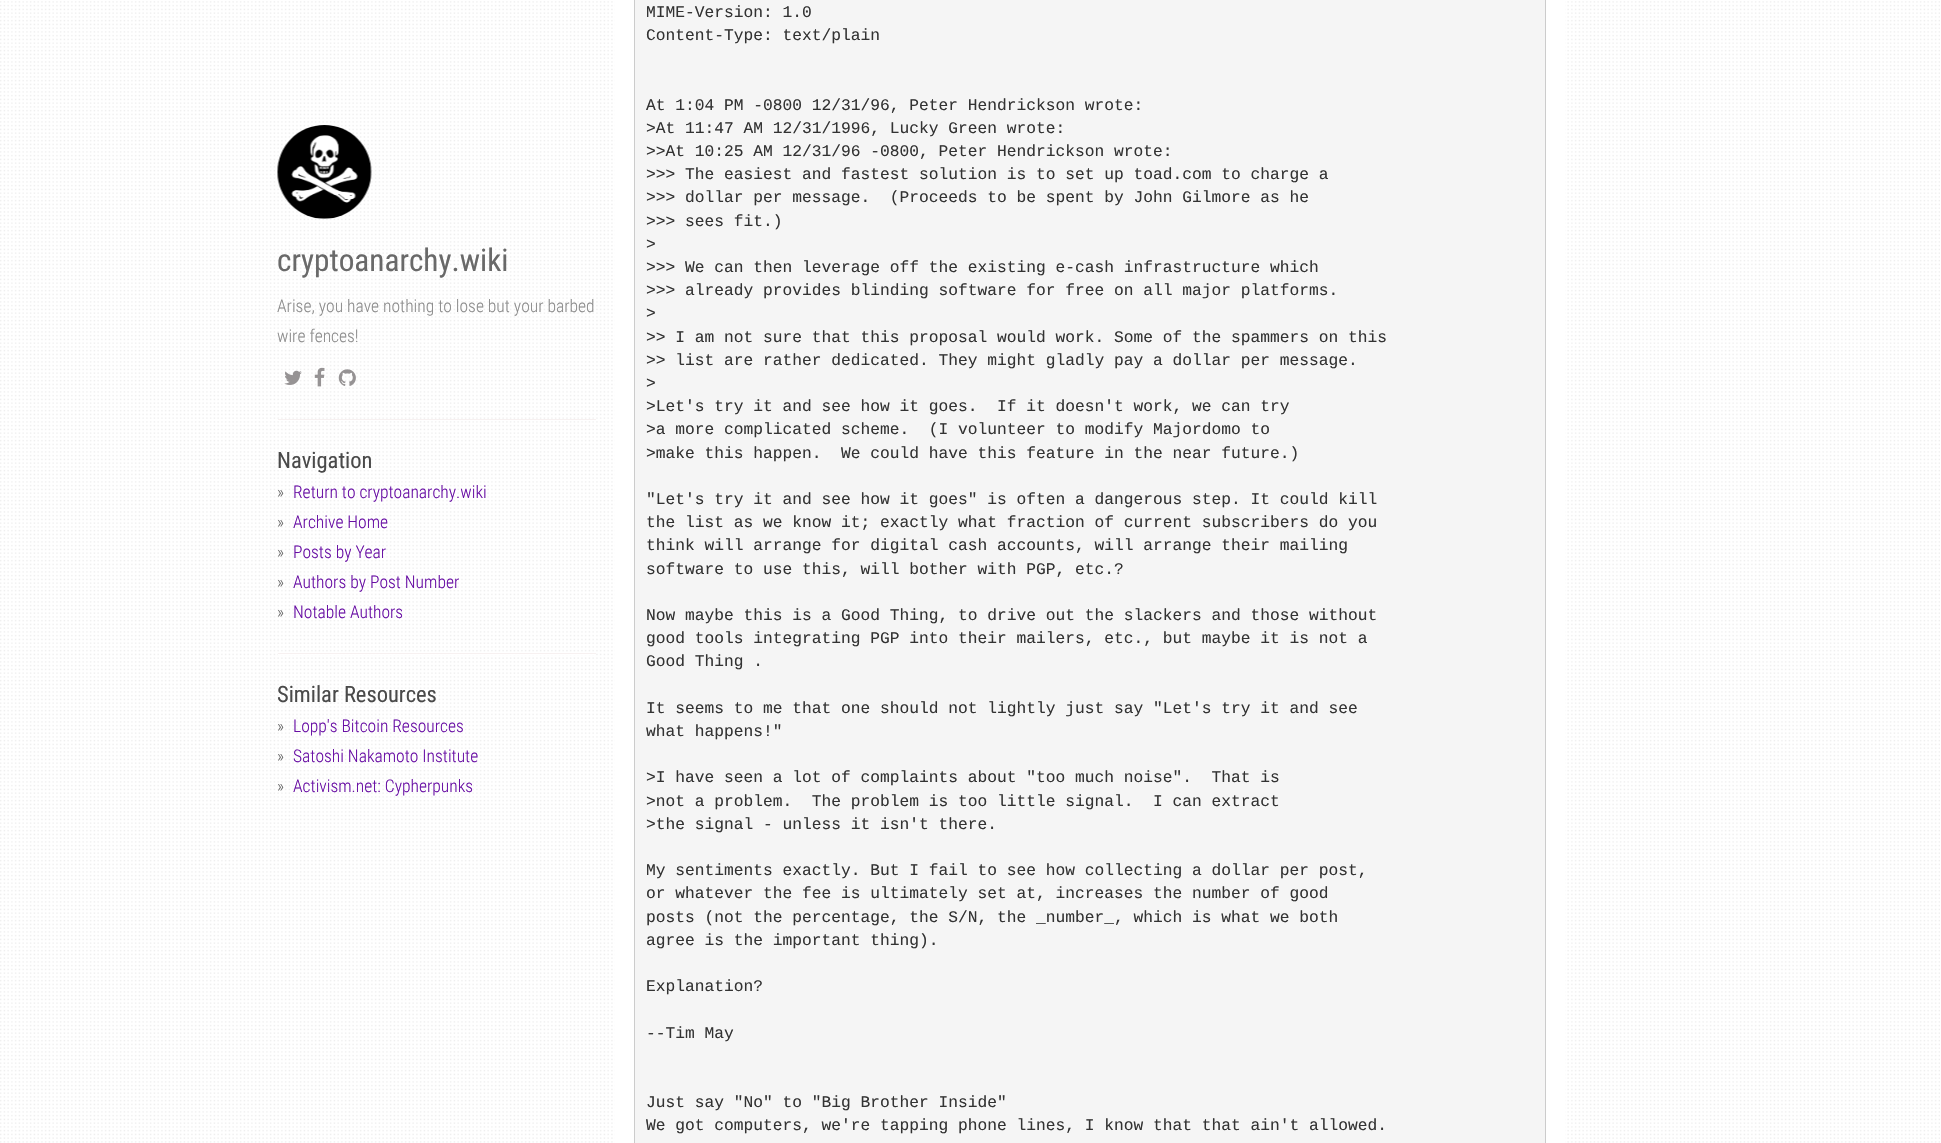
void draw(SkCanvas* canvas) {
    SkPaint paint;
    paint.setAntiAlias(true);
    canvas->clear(0xFFFFFFFF);
    canvas->drawImageRect(SkImages::DeferredFromEncodedData(SkData::MakeFromFileName("img1.png")), SkRect::MakeXYWH(0, 1, 1940, 1142), SkSamplingOptions());
    canvas->drawImageRect(SkImages::DeferredFromEncodedData(SkData::MakeFromFileName("img2.png")), SkRect::MakeXYWH(277, 125, 95, 94), SkSamplingOptions());
    SkFont font1(fontMgr->matchFamilyStyle("Roboto Condensed", SkFontStyle::Normal()), 31.25f);
    font1.setSubpixel(true);
    paint.setColor(0xFF696969);
    canvas->drawString("cryptoanarchy.wiki", 277, 271, font1, paint);
    SkFont font2(fontMgr->matchFamilyStyle("Roboto Condensed", SkFontStyle(300, SkFontStyle::kNormal_Width, SkFontStyle::kUpright_Slant)), 17.5f);
    font2.setSubpixel(true);
    paint.setColor(0xFF8C8C8C);
    canvas->drawString("Arise, you have nothing to lose but your barbed", 277, 312, font2, paint);
    canvas->drawString("wire fences!", 277, 342, font2, paint);
    canvas->drawImageRect(SkImages::DeferredFromEncodedData(SkData::MakeFromFileName("img3.png")), SkRect::MakeXYWH(284, 370, 18, 15), SkSamplingOptions());
    canvas->drawImageRect(SkImages::DeferredFromEncodedData(SkData::MakeFromFileName("img4.png")), SkRect::MakeXYWH(314, 367, 11, 20), SkSamplingOptions());
    canvas->drawImageRect(SkImages::DeferredFromEncodedData(SkData::MakeFromFileName("img5.png")), SkRect::MakeXYWH(338, 369, 18, 17), SkSamplingOptions());
    paint.setColor(0xFFF7F1F1);
    canvas->drawRect(SkRect::MakeXYWH(278, 419, 318, 1), paint);
    SkFont font3(fontMgr->matchFamilyStyle("Roboto Condensed", SkFontStyle::Normal()), 22.5f);
    font3.setSubpixel(true);
    paint.setColor(0xFF4A4A4A);
    canvas->drawString("Navigation", 277, 468, font3, paint);
    paint.setColor(0xFF696969);
    canvas->drawString("»", 277, 498, font2, paint);
    paint.setColor(0xFF680EA4);
    canvas->drawString("Return to cryptoanarchy.wiki", 293, 498, font2, paint);
    paint.setColor(0xFF696969);
    canvas->drawString("»", 277, 528, font2, paint);
    paint.setColor(0xFF680EA4);
    canvas->drawString("Archive Home", 293, 528, font2, paint);
    paint.setColor(0xFF696969);
    canvas->drawString("»", 277, 558, font2, paint);
    paint.setColor(0xFF680EA4);
    canvas->drawString("Posts by Year", 293, 558, font2, paint);
    paint.setColor(0xFF696969);
    canvas->drawString("»", 277, 588, font2, paint);
    paint.setColor(0xFF680EA4);
    canvas->drawString("Authors by Post Number", 293, 588, font2, paint);
    paint.setColor(0xFF696969);
    canvas->drawString("»", 277, 618, font2, paint);
    paint.setColor(0xFF680EA4);
    canvas->drawString("Notable Authors", 293, 618, font2, paint);
    paint.setColor(0xFFF7F1F1);
    canvas->drawRect(SkRect::MakeXYWH(278, 653, 318, 1), paint);
    paint.setColor(0xFFFFFFFF);
    canvas->drawRect(SkRect::MakeXYWH(278, 654, 318, 1), paint);
    paint.setColor(0xFF4A4A4A);
    canvas->drawString("Similar Resources", 277, 702, font3, paint);
    paint.setColor(0xFF696969);
    canvas->drawString("»", 277, 732, font2, paint);
    paint.setColor(0xFF680EA4);
    canvas->drawString("Lopp's Bitcoin Resources", 293, 732, font2, paint);
    paint.setColor(0xFF696969);
    canvas->drawString("»", 277, 762, font2, paint);
    paint.setColor(0xFF680EA4);
    canvas->drawString("Satoshi Nakamoto Institute", 293, 762, font2, paint);
    paint.setColor(0xFF696969);
    canvas->drawString("»", 277, 792, font2, paint);
    paint.setColor(0xFF680EA4);
    canvas->drawString("Activism.net: Cypherpunks", 293, 792, font2, paint);
    paint.setColor(0xFFFFFFFF);
    canvas->drawRect(SkRect::MakeXYWH(615, 1, 950, 1142), paint);
    paint.setColor(0xFFF5F5F5);
    canvas->drawRect(SkRect::MakeXYWH(634.5f, -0.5f, 911, 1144), paint);
    paint.setStyle(SkPaint::kStroke_Style);
    paint.setStrokeWidth(1);
    paint.setColor(0xFFCCCCCC);
    canvas->drawRect(SkRect::MakeXYWH(634.5f, -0.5f, 911, 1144), paint);
    SkFont font4(fontMgr->matchFamilyStyle("Liberation Mono", SkFontStyle::Normal()), 16.25f);
    font4.setSubpixel(true);
    paint.setStyle(SkPaint::kFill_Style);
    paint.setColor(0xFF333333);
    canvas->drawString("MIME-Version: 1.0", 646, 17, font4, paint);
    canvas->drawString("Content-Type: text/plain", 646, 40, font4, paint);
    canvas->drawString("At 1:04 PM -0800 12/31/96, Peter Hendrickson wrote:", 646, 110, font4, paint);
    canvas->drawString(">At 11:47 AM 12/31/1996, Lucky Green wrote:", 646, 133, font4, paint);
    canvas->drawString(">>At 10:25 AM 12/31/96 -0800, Peter Hendrickson wrote:", 646, 156, font4, paint);
    canvas->drawString(">>> The easiest and fastest solution is to set up toad.com to charge a", 646, 179, font4, paint);
    canvas->drawString(">>> dollar per message.  (Proceeds to be spent by John Gilmore as he", 646, 202, font4, paint);
    canvas->drawString(">>> sees fit.)", 646, 226, font4, paint);
    canvas->drawString(">", 646, 249, font4, paint);
    canvas->drawString(">>> We can then leverage off the existing e-cash infrastructure which", 646, 272, font4, paint);
    canvas->drawString(">>> already provides blinding software for free on all major platforms.", 646, 295, font4, paint);
    canvas->drawString(">", 646, 318, font4, paint);
    canvas->drawString(">> I am not sure that this proposal would work. Some of the spammers on this", 646, 342, font4, paint);
    canvas->drawString(">> list are rather dedicated. They might gladly pay a dollar per message.", 646, 365, font4, paint);
    canvas->drawString(">", 646, 388, font4, paint);
    canvas->drawString(">Let's try it and see how it goes.  If it doesn't work, we can try", 646, 411, font4, paint);
    canvas->drawString(">a more complicated scheme.  (I volunteer to modify Majordomo to", 646, 434, font4, paint);
    canvas->drawString(">make this happen.  We could have this feature in the near future.)", 646, 458, font4, paint);
    canvas->drawString("\"Let's try it and see how it goes\" is often a dangerous step. It could kill", 646, 504, font4, paint);
    canvas->drawString("the list as we know it; exactly what fraction of current subscribers do you", 646, 527, font4, paint);
    canvas->drawString("think will arrange for digital cash accounts, will arrange their mailing", 646, 550, font4, paint);
    canvas->drawString("software to use this, will bother with PGP, etc.?", 646, 574, font4, paint);
    canvas->drawString("Now maybe this is a Good Thing, to drive out the slackers and those without", 646, 620, font4, paint);
    canvas->drawString("good tools integrating PGP into their mailers, etc., but maybe it is not a", 646, 643, font4, paint);
    canvas->drawString("Good Thing .", 646, 666, font4, paint);
    canvas->drawString("It seems to me that one should not lightly just say \"Let's try it and see", 646, 713, font4, paint);
    canvas->drawString("what happens!\"", 646, 736, font4, paint);
    canvas->drawString(">I have seen a lot of complaints about \"too much noise\".  That is", 646, 782, font4, paint);
    canvas->drawString(">not a problem.  The problem is too little signal.  I can extract", 646, 806, font4, paint);
    canvas->drawString(">the signal - unless it isn't there.", 646, 829, font4, paint);
    canvas->drawString("My sentiments exactly. But I fail to see how collecting a dollar per post,", 646, 875, font4, paint);
    canvas->drawString("or whatever the fee is ultimately set at, increases the number of good", 646, 898, font4, paint);
    canvas->drawString("posts (not the percentage, the S/N, the _number_, which is what we both", 646, 922, font4, paint);
    canvas->drawString("agree is the important thing).", 646, 945, font4, paint);
    canvas->drawString("Explanation?", 646, 991, font4, paint);
    canvas->drawString("--Tim May", 646, 1038, font4, paint);
    canvas->drawString("Just say \"No\" to \"Big Brother Inside\"", 646, 1107, font4, paint);
    canvas->drawString("We got computers, we're tapping phone lines, I know that that ain't allowed.", 646, 1130, font4, paint);
}
